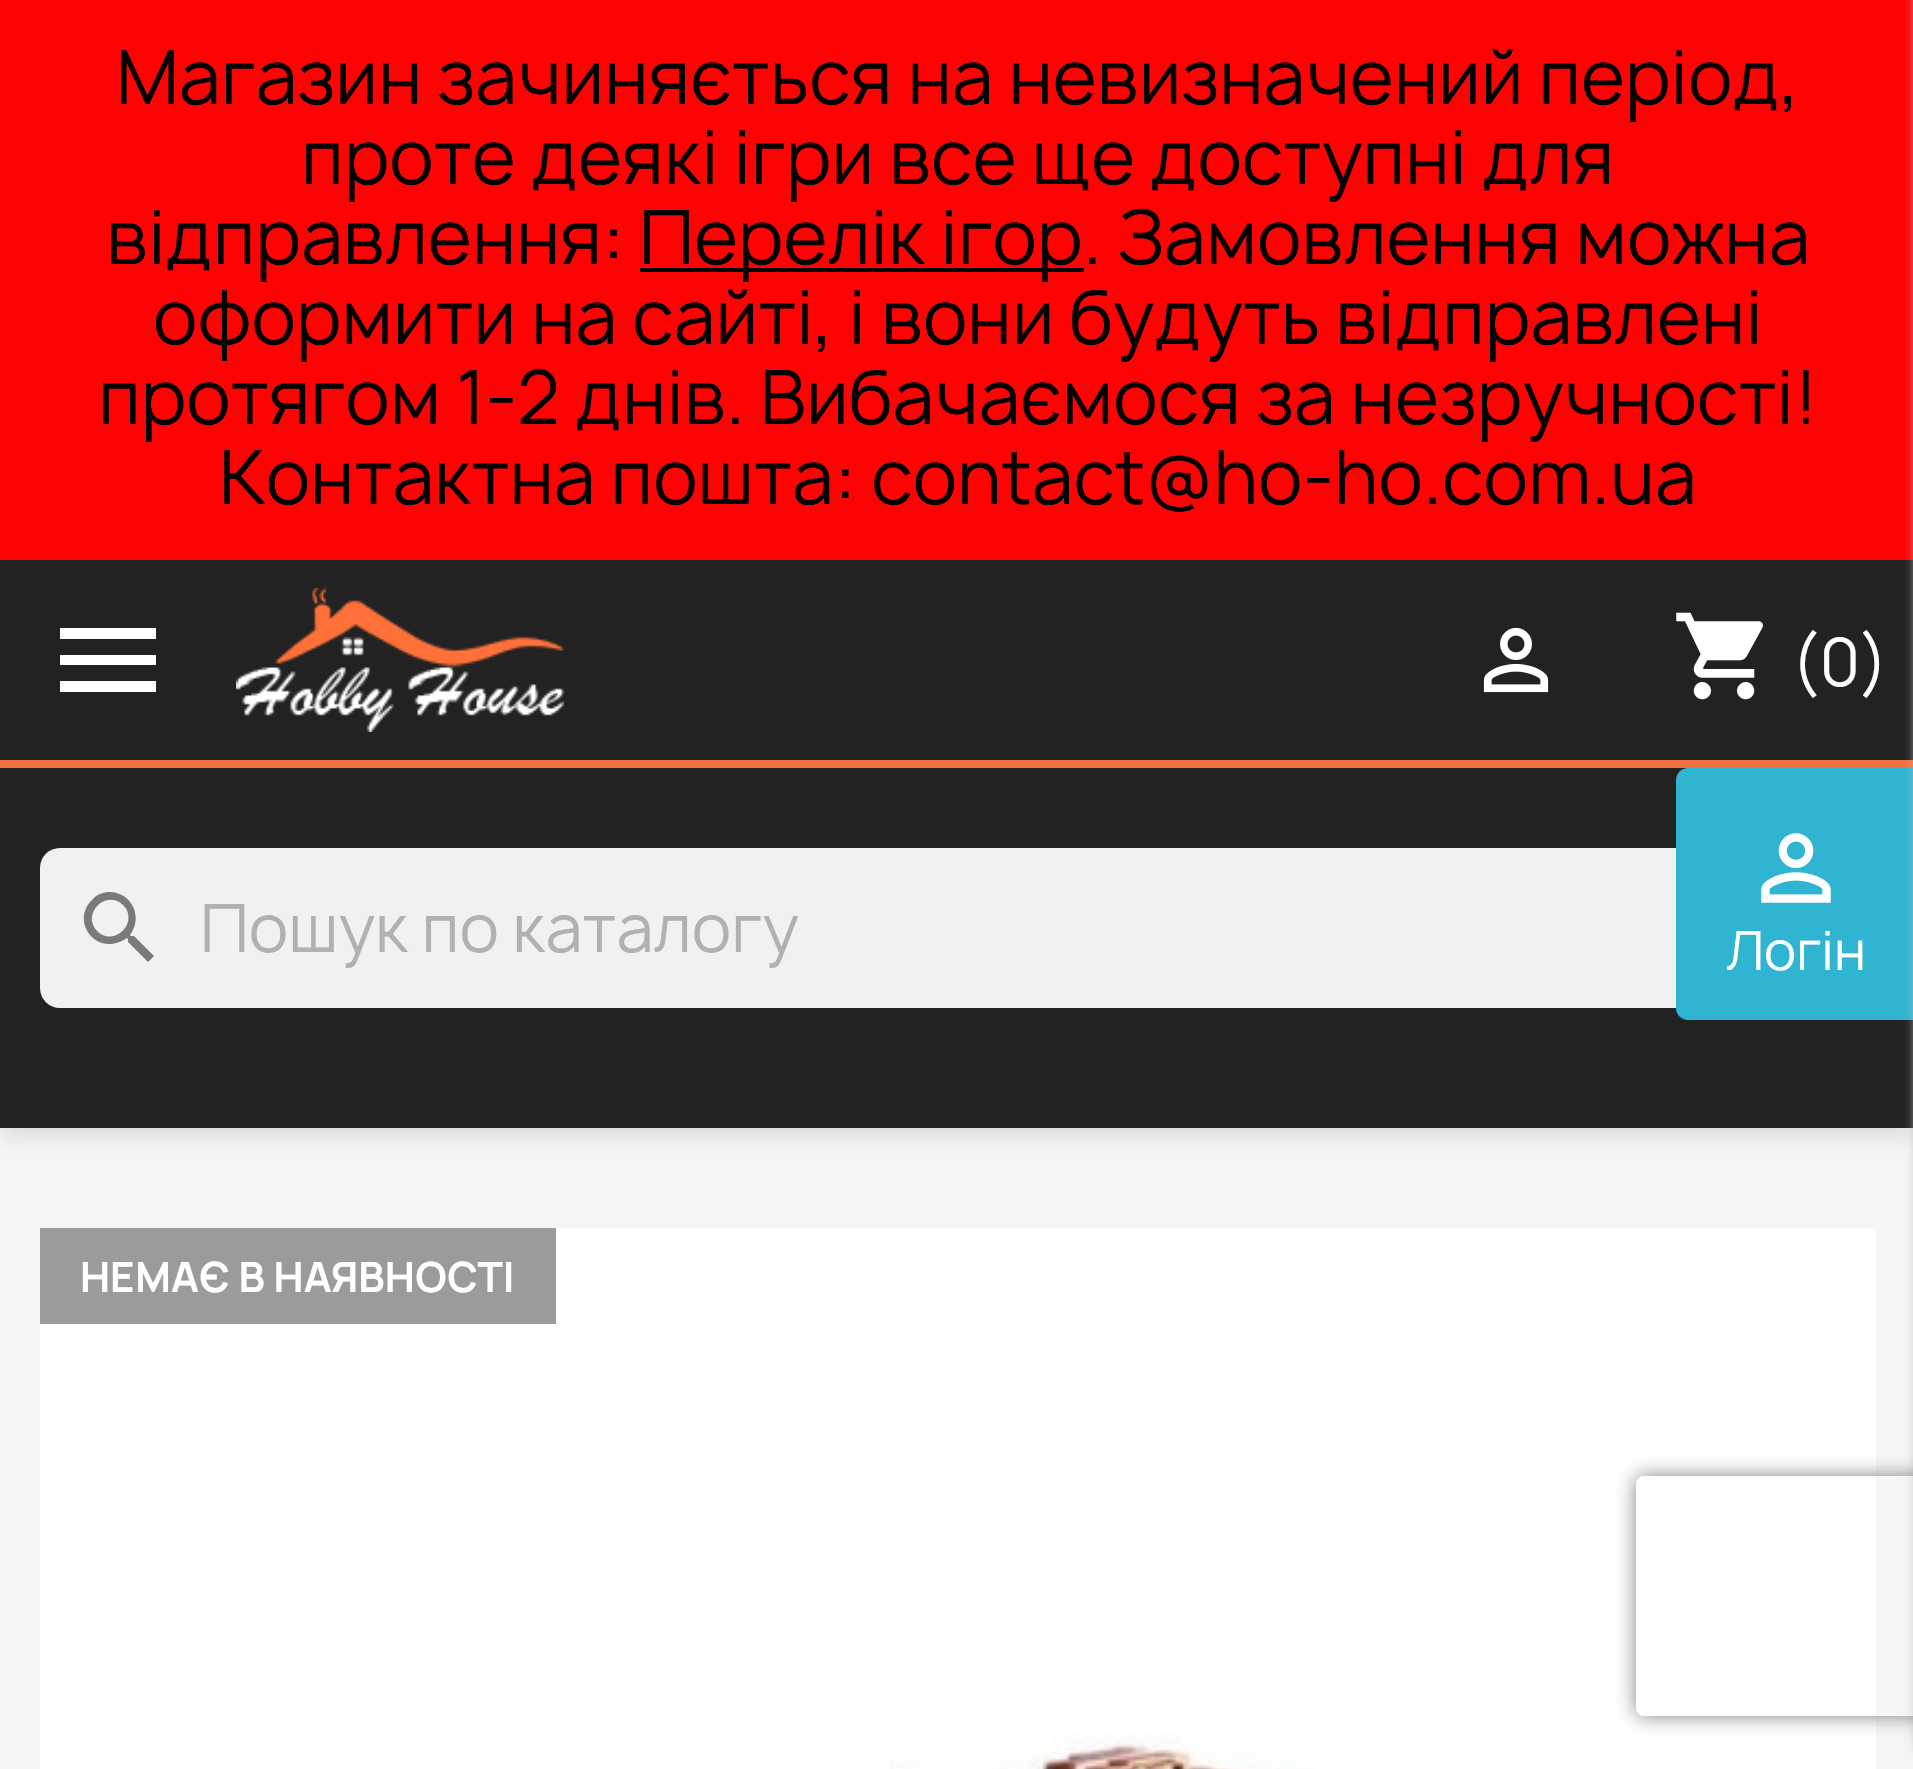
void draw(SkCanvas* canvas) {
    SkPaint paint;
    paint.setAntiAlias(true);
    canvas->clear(0xFFF6F6F6);
    paint.setColor(0x1C000000);
    paint.setMaskFilter(SkMaskFilter::MakeBlur(kNormal_SkBlurStyle, 10));
    canvas->drawRect(SkRect::MakeXYWH(0, 8, 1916, 1128), paint);
    paint.setMaskFilter(nullptr);
    paint.setColor(0xFF222222);
    canvas->drawRect(SkRect::MakeXYWH(0, 560, 1913, 568), paint);
    paint.setColor(0xFFFE0303);
    canvas->drawRect(SkRect::MakeXYWH(0, 0, 1913, 560), paint);
    SkFont font1(fontMgr->matchFamilyStyle("Manrope", SkFontStyle::Normal()), 72);
    font1.setSubpixel(true);
    paint.setColor(0xFF000000);
    canvas->drawString("Магазин зачиняється на невизначений період,", 116, 104, font1, paint);
    canvas->drawString("проте деякі ігри все ще доступні для", 301, 184, font1, paint);
    canvas->drawString("відправлення:", 106, 264, font1, paint);
    canvas->drawRect(SkRect::MakeXYWH(640, 268, 444, 4), paint);
    canvas->drawString("Перелік ігор. Замовлення можна", 639, 264, font1, paint);
    canvas->drawString("оформити на сайті, і вони будуть відправлені", 153, 344, font1, paint);
    canvas->drawString("протягом 1-2 днів. Вибачаємося за незручності!", 98, 424, font1, paint);
    canvas->drawString("Контактна пошта: contact@ho-ho.com.ua", 219, 504, font1, paint);
    paint.setColor(0xFFF2703E);
    canvas->drawRect(SkRect::MakeXYWH(0, 760, 1913, 8), paint);
    paint.setColor(0xFFFFFFFF);
    canvas->drawPath(SkPathBuilder().moveTo(60, 628).lineTo(156, 628).lineTo(156, 639).lineTo(60, 639).close().moveTo(60, 665).lineTo(60, 655).lineTo(156, 655).lineTo(156, 665).close().moveTo(60, 692).lineTo(60, 681).lineTo(156, 681).lineTo(156, 692).close().detach(), paint);
    canvas->drawImageRect(SkImages::DeferredFromEncodedData(SkData::MakeFromFileName("img1.png")), SkRect::MakeXYWH(236, 588, 328, 144), SkSamplingOptions());
    canvas->drawImageRect(SkImages::DeferredFromEncodedData(SkData::MakeFromFileName("img2.png")), SkRect::MakeXYWH(1483, 627, 66, 66), SkSamplingOptions());
    canvas->drawImageRect(SkImages::DeferredFromEncodedData(SkData::MakeFromFileName("img3.png")), SkRect::MakeXYWH(1676, 612, 87, 88), SkSamplingOptions());
    SkFont font2(fontMgr->matchFamilyStyle("Manrope", SkFontStyle::Normal()), 64);
    font2.setSubpixel(true);
    canvas->drawString("(0)", 1791, 686, font2, paint);
    paint.setColor(0xFFF1F1F1);
    canvas->drawRoundRect(SkRect::MakeXYWH(40, 848, 1836, 160), 20, 20, paint);
    paint.setColor(0xFF7A7A7A);
    canvas->drawPath(SkPathBuilder().moveTo(97, 931).cubicTo(114, 948, 140, 922, 123, 905).cubicTo(106, 889, 81, 914, 97, 931).close().moveTo(134, 936).lineTo(154, 956).lineTo(148, 962).lineTo(128, 942).lineTo(128, 939).lineTo(127, 938).cubicTo(123, 941, 118, 943, 112, 944).cubicTo(88, 946, 74, 917, 92, 900).cubicTo(96, 895, 101, 893, 107, 892).cubicTo(131, 890, 144, 917, 130, 935).lineTo(131, 936).close().detach(), paint);
    paint.setColor(0xFFB1B1B1);
    canvas->drawString("Пошук по каталогу", 200, 952, font2, paint);
    paint.setColor(0xFF2FB5D2);
    canvas->drawPath(SkPathBuilder().moveTo(1688, 768).lineTo(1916, 768).lineTo(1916, 1020).lineTo(1688, 1020).cubicTo(1681.5f, 1020, 1676, 1014.5f, 1676, 1008).lineTo(1676, 780).cubicTo(1676, 773.5f, 1681.5f, 768, 1688, 768).close().detach(), paint);
    canvas->drawImageRect(SkImages::DeferredFromEncodedData(SkData::MakeFromFileName("img4.png")), SkRect::MakeXYWH(1761, 833, 70, 70), SkSamplingOptions());
    SkFont font3(fontMgr->matchFamilyStyle("Manrope", SkFontStyle::Normal()), 52);
    font3.setSubpixel(true);
    paint.setColor(0xFFFFFFFF);
    canvas->drawString("Логін", 1726, 970, font3, paint);
    paint.setColor(0xFFBBBBBB);
    paint.setMaskFilter(SkMaskFilter::MakeBlur(kNormal_SkBlurStyle, 6));
    canvas->drawRoundRect(SkRect::MakeXYWH(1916, -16, 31, 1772), 16, 16, paint);
    paint.setMaskFilter(nullptr);
    paint.setColor(0xFFFFFFFF);
    canvas->drawRect(SkRect::MakeXYWH(40, 1228, 1836, 541), paint);
    canvas->drawImageRect(SkImages::DeferredFromEncodedData(SkData::MakeFromFileName("img5.png")), SkRect::MakeXYWH(889, 1734, 428, 35), SkSamplingOptions());
    paint.setColor(0xFF9B9B9B);
    canvas->drawRect(SkRect::MakeXYWH(40, 1228, 516, 96), paint);
    SkFont font4(fontMgr->matchFamilyStyle("Manrope", SkFontStyle::Bold()), 40);
    font4.setSubpixel(true);
    paint.setColor(0xFFFFFFFF);
    canvas->drawString("НЕМАЄ В НАЯВНОСТІ", 80, 1292, font4, paint);
    canvas->save();
    canvas->clipPath(SkPathBuilder(SkPathFillType::kEvenOdd).moveTo(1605, 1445).lineTo(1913, 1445).lineTo(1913, 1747).lineTo(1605, 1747).close().moveTo(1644, 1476).lineTo(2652, 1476).cubicTo(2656.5f, 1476, 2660, 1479.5f, 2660, 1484).lineTo(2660, 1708).cubicTo(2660, 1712.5f, 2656.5f, 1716, 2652, 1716).lineTo(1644, 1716).cubicTo(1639.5f, 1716, 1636, 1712.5f, 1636, 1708).lineTo(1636, 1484).cubicTo(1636, 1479.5f, 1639.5f, 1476, 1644, 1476).close().detach(), true);
    paint.setColor(0xFF808080);
    paint.setMaskFilter(SkMaskFilter::MakeBlur(kNormal_SkBlurStyle, 10));
    canvas->drawRoundRect(SkRect::MakeXYWH(1636, 1476, 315, 240), 8, 8, paint);
    paint.setMaskFilter(nullptr);
    canvas->restore();
}
